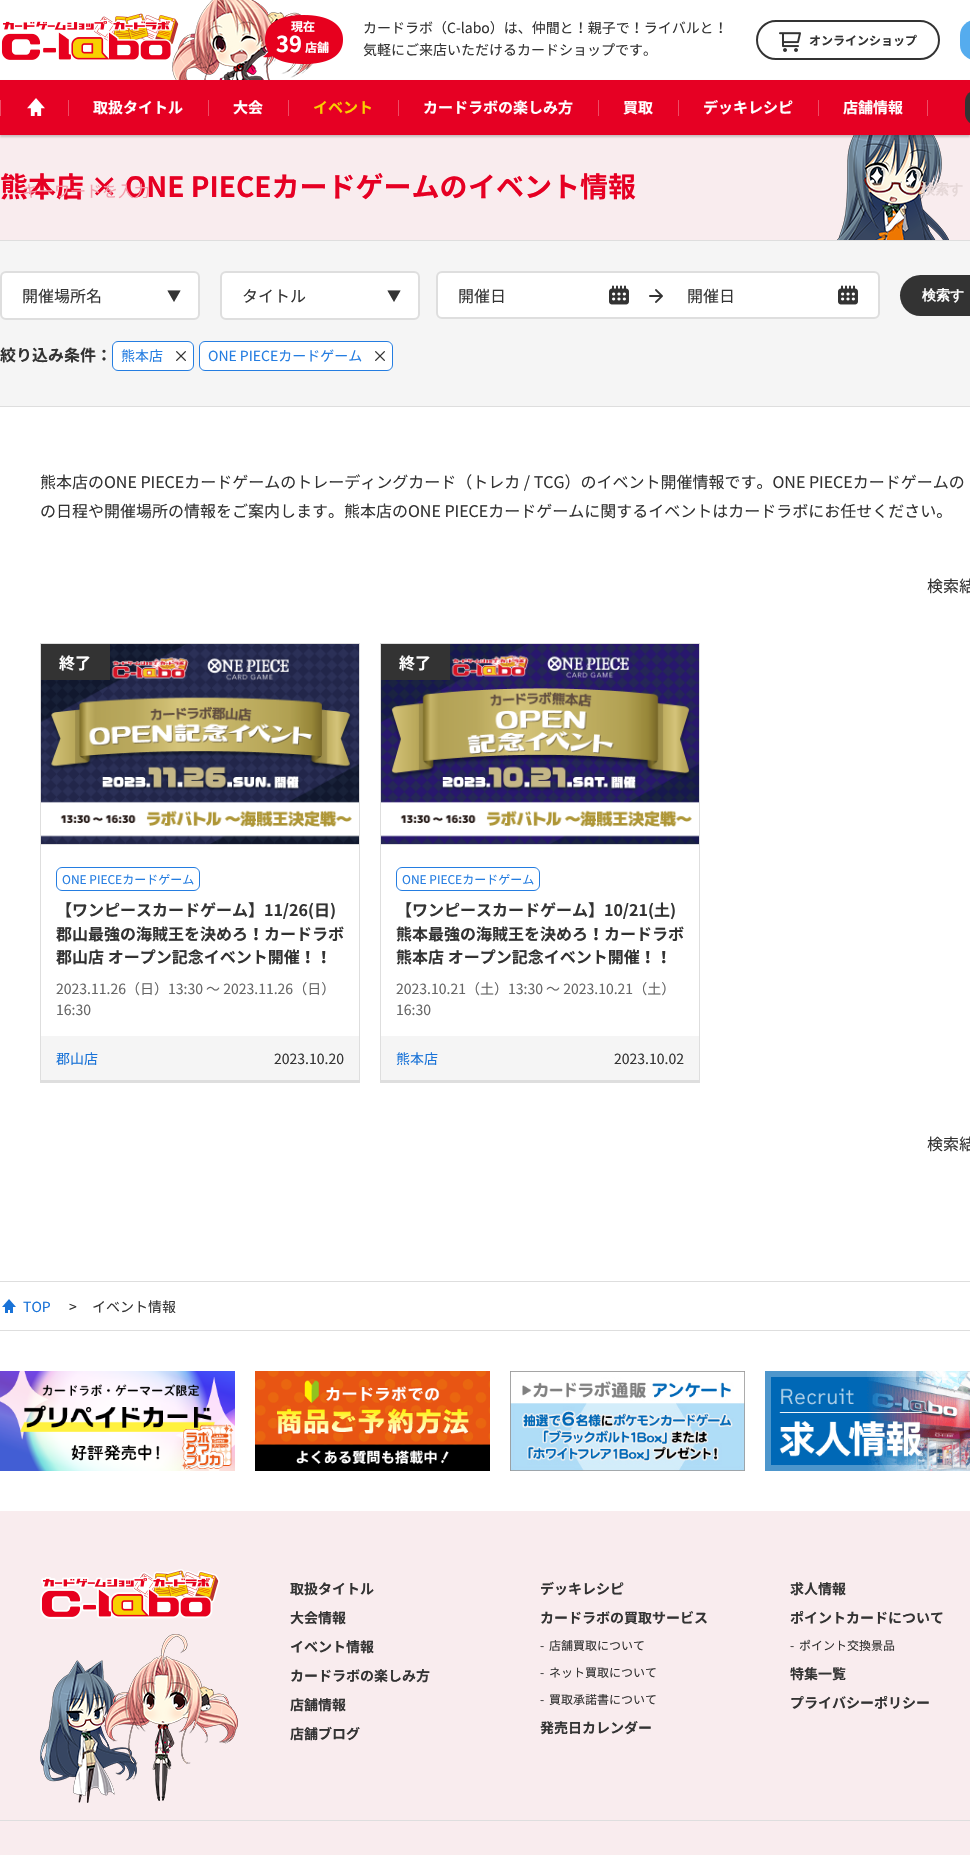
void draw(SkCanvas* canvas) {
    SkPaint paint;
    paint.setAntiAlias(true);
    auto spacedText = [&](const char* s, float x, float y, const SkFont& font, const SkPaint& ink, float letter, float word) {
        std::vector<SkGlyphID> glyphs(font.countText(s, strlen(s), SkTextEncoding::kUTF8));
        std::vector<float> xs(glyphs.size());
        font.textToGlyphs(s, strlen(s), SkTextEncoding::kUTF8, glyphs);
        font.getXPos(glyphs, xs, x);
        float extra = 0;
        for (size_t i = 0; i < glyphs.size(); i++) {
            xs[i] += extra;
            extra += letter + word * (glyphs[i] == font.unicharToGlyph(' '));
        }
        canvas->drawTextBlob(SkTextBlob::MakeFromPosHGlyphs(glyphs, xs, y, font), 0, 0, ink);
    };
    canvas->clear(0xFFFFFFFF);
    canvas->drawImageRect(SkImages::DeferredFromEncodedData(SkData::MakeFromFileName("img1.png")), SkRect::MakeXYWH(1, 13, 178, 47), SkSamplingOptions());
    canvas->drawImageRect(SkImages::DeferredFromEncodedData(SkData::MakeFromFileName("img2.png")), SkRect::MakeXYWH(172, 0, 171, 80), SkSamplingOptions());
    SkFont font1(fontMgr->matchFamilyStyle("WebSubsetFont", SkFontStyle::Bold()), 12);
    font1.setSubpixel(true);
    paint.setColor(0xFFFFFFFF);
    canvas->drawString("現在", 291, 31, font1, paint);
    SkFont font2(fontMgr->matchFamilyStyle("WebSubsetFont", SkFontStyle::Bold()), 22);
    font2.setSubpixel(true);
    canvas->drawString("39", 276, 52, font2, paint);
    canvas->drawString("店舗", 305, 52, font1, paint);
    SkFont font3(fontMgr->matchFamilyStyle("WebSubsetFont", SkFontStyle::Normal()), 14);
    font3.setSubpixel(true);
    paint.setColor(0xFF333333);
    canvas->drawString("カードラボ（C-labo）は、仲間と！親子で！ライバルと！", 363, 33, font3, paint);
    canvas->drawString("気軽にご来店いただけるカードショップです。", 363, 55, font3, paint);
    paint.setStyle(SkPaint::kStroke_Style);
    paint.setStrokeWidth(2);
    canvas->drawRoundRect(SkRect::MakeXYWH(757, 21, 182, 38), 19, 19, paint);
    canvas->drawImageRect(SkImages::DeferredFromEncodedData(SkData::MakeFromFileName("img3.png")), SkRect::MakeXYWH(779, 32, 22, 20), SkSamplingOptions());
    paint.setStyle(SkPaint::kFill_Style);
    canvas->drawString("オンラインショップ", 809, 45, font1, paint);
    paint.setColor(0xFF55ACEE);
    canvas->drawRoundRect(SkRect::MakeXYWH(960, 20, 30, 40), 20, 20, paint);
    paint.setColor(0xFFF9ECEE);
    canvas->drawRect(SkRect::MakeXYWH(0, 135, 970, 105), paint);
    canvas->drawImageRect(SkImages::DeferredFromEncodedData(SkData::MakeFromFileName("img5.png")), SkRect::MakeXYWH(837, 135, 112, 105), SkSamplingOptions());
    paint.setColor(0x33000000);
    paint.setMaskFilter(SkMaskFilter::MakeBlur(kNormal_SkBlurStyle, 1));
    canvas->drawRect(SkRect::MakeXYWH(0, 82, 970, 55), paint);
    paint.setMaskFilter(nullptr);
    paint.setColor(0xFFE60023);
    canvas->drawRect(SkRect::MakeXYWH(0, 80, 970, 55), paint);
    paint.setColor(0xFFEE4D65);
    canvas->drawRect(SkRect::MakeXYWH(0, 100, 1, 16), paint);
    canvas->drawImageRect(SkImages::DeferredFromEncodedData(SkData::MakeFromFileName("img4.png")), SkRect::MakeXYWH(27, 98, 18, 18), SkSamplingOptions());
    canvas->drawRect(SkRect::MakeXYWH(68, 100, 1, 16), paint);
    SkFont font4(fontMgr->matchFamilyStyle("WebSubsetFont", SkFontStyle::Bold()), 15);
    font4.setSubpixel(true);
    paint.setColor(0xFFFFFFFF);
    canvas->drawString("取扱タイトル", 93, 113, font4, paint);
    paint.setColor(0xFFEE4D65);
    canvas->drawRect(SkRect::MakeXYWH(208, 100, 1, 16), paint);
    paint.setColor(0xFFFFFFFF);
    canvas->drawString("大会", 233, 113, font4, paint);
    paint.setColor(0xFFEE4D65);
    canvas->drawRect(SkRect::MakeXYWH(288, 100, 1, 16), paint);
    paint.setColor(0xFFF8CF00);
    canvas->drawString("イベント", 313, 113, font4, paint);
    paint.setColor(0xFFEE4D65);
    canvas->drawRect(SkRect::MakeXYWH(398, 100, 1, 16), paint);
    paint.setColor(0xFFFFFFFF);
    canvas->drawString("カードラボの楽しみ方", 423, 113, font4, paint);
    paint.setColor(0xFFEE4D65);
    canvas->drawRect(SkRect::MakeXYWH(598, 100, 1, 16), paint);
    paint.setColor(0xFFFFFFFF);
    canvas->drawString("買取", 623, 113, font4, paint);
    paint.setColor(0xFFEE4D65);
    canvas->drawRect(SkRect::MakeXYWH(678, 100, 1, 16), paint);
    paint.setColor(0xFFFFFFFF);
    canvas->drawString("デッキレシピ", 703, 113, font4, paint);
    paint.setColor(0xFFEE4D65);
    canvas->drawRect(SkRect::MakeXYWH(818, 100, 1, 16), paint);
    paint.setColor(0xFFFFFFFF);
    canvas->drawString("店舗情報", 843, 113, font4, paint);
    paint.setColor(0xFFEE4D65);
    canvas->drawRect(SkRect::MakeXYWH(927, 100, 1, 16), paint);
    paint.setColor(0xFF333333);
    canvas->drawRoundRect(SkRect::MakeXYWH(965, 90, 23, 35), 17.5f, 17.5f, paint);
    SkFont font5(fontMgr->matchFamilyStyle("WebSubsetFont", SkFontStyle::Bold()), 28);
    font5.setSubpixel(true);
    paint.setColor(0xFFE60023);
    canvas->drawString("熊本店 × ONE PIECEカードゲームの", 0, 197, font5, paint);
    SkFont font6(fontMgr->matchFamilyStyle("WebSubsetFont", SkFontStyle::Normal()), 16);
    font6.setSubpixel(true);
    paint.setColor(0xFFF39EAB);
    canvas->drawString("キーワードを入力", 22, 197, font6, paint);
    SkFont font7(fontMgr->matchFamilyStyle("WenQuanYi Zen Hei", SkFontStyle::Bold()), 14);
    font7.setSubpixel(true);
    paint.setColor(0xFFE5D7D7);
    canvas->drawString("検索す", 921, 194, font7, paint);
    paint.setColor(0xFFE60023);
    canvas->drawString("イベント情報", 468, 197, font5, paint);
    paint.setColor(0xFFF5F5F5);
    canvas->drawRect(SkRect::MakeXYWH(0, 241, 970, 165), paint);
    paint.setColor(0xFFDEDEDE);
    canvas->drawRect(SkRect::MakeXYWH(0, 240, 970, 1), paint);
    canvas->drawRect(SkRect::MakeXYWH(0, 406, 970, 1), paint);
    paint.setColor(0xFFFFFFFF);
    canvas->drawRoundRect(SkRect::MakeXYWH(1, 272, 198, 47), 5, 5, paint);
    paint.setStyle(SkPaint::kStroke_Style);
    paint.setColor(0xFFDEDEDE);
    canvas->drawRoundRect(SkRect::MakeXYWH(1, 272, 198, 47), 5, 5, paint);
    paint.setStyle(SkPaint::kFill_Style);
    paint.setColor(0xFF333333);
    canvas->drawString("開催場所名", 22, 302, font6, paint);
    spacedText("▼", 167, 301, font3, paint, 2, 0);
    paint.setColor(0xFFFFFFFF);
    canvas->drawRoundRect(SkRect::MakeXYWH(221, 272, 198, 47), 5, 5, paint);
    paint.setStyle(SkPaint::kStroke_Style);
    paint.setColor(0xFFDEDEDE);
    canvas->drawRoundRect(SkRect::MakeXYWH(221, 272, 198, 47), 5, 5, paint);
    paint.setStyle(SkPaint::kFill_Style);
    paint.setColor(0xFF333333);
    canvas->drawString("タイトル", 242, 302, font6, paint);
    spacedText("▼", 387, 301, font3, paint, 2, 0);
    paint.setColor(0xFFFFFFFF);
    canvas->drawRoundRect(SkRect::MakeXYWH(437, 272, 442, 46), 5, 5, paint);
    paint.setStyle(SkPaint::kStroke_Style);
    paint.setColor(0xFFDEDEDE);
    canvas->drawRoundRect(SkRect::MakeXYWH(437, 272, 442, 46), 5, 5, paint);
    paint.setStyle(SkPaint::kFill_Style);
    paint.setColor(0xFF333333);
    canvas->drawString("開催日", 458, 302, font6, paint);
    canvas->drawImageRect(SkImages::DeferredFromEncodedData(SkData::MakeFromFileName("img6.png")), SkRect::MakeXYWH(609, 285, 20, 20), SkSamplingOptions());
    canvas->drawImageRect(SkImages::DeferredFromEncodedData(SkData::MakeFromFileName("img7.png")), SkRect::MakeXYWH(649, 289, 14, 14), SkSamplingOptions());
    canvas->drawString("開催日", 687, 302, font6, paint);
    canvas->drawImageRect(SkImages::DeferredFromEncodedData(SkData::MakeFromFileName("img6.png")), SkRect::MakeXYWH(838, 285, 20, 20), SkSamplingOptions());
    canvas->drawRoundRect(SkRect::MakeXYWH(900, 275, 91, 41), 20.5f, 20.5f, paint);
    paint.setColor(0xFFFFFFFF);
    canvas->drawString("検索す", 922, 300, font7, paint);
    SkFont font8(fontMgr->matchFamilyStyle("WebSubsetFont", SkFontStyle::Bold()), 16);
    font8.setSubpixel(true);
    paint.setColor(0xFF333333);
    canvas->drawString("絞り込み条件：", 0, 361, font8, paint);
    paint.setColor(0xFFFFFFFF);
    canvas->drawRoundRect(SkRect::MakeXYWH(112.5f, 341.5f, 81, 29), 5.5f, 5.5f, paint);
    paint.setStyle(SkPaint::kStroke_Style);
    paint.setStrokeWidth(1);
    paint.setColor(0xFF247DE1);
    canvas->drawRoundRect(SkRect::MakeXYWH(112.5f, 341.5f, 81, 29), 5.5f, 5.5f, paint);
    paint.setStyle(SkPaint::kFill_Style);
    canvas->drawString("熊本店", 121, 361, font3, paint);
    canvas->drawImageRect(SkImages::DeferredFromEncodedData(SkData::MakeFromFileName("img8.png")), SkRect::MakeXYWH(176, 351, 10, 10), SkSamplingOptions());
    paint.setColor(0xFFFFFFFF);
    canvas->drawRoundRect(SkRect::MakeXYWH(199.5f, 341.5f, 193, 29), 5.5f, 5.5f, paint);
    paint.setStyle(SkPaint::kStroke_Style);
    paint.setColor(0xFF247DE1);
    canvas->drawRoundRect(SkRect::MakeXYWH(199.5f, 341.5f, 193, 29), 5.5f, 5.5f, paint);
    paint.setStyle(SkPaint::kFill_Style);
    canvas->drawString("ONE PIECEカードゲーム", 208, 361, font3, paint);
    canvas->drawImageRect(SkImages::DeferredFromEncodedData(SkData::MakeFromFileName("img8.png")), SkRect::MakeXYWH(375, 351, 10, 10), SkSamplingOptions());
    paint.setColor(0xFF333333);
    canvas->drawString("熊本店のONE PIECEカードゲームのトレーディングカード（トレカ / TCG）のイベント開催情報です。ONE PIECEカードゲームの", 40, 488, font6, paint);
    canvas->drawString("の日程や開催場所の情報をご案内します。熊本店のONE PIECEカードゲームに関するイベントはカードラボにお任せください。", 40, 517, font6, paint);
    canvas->drawString("検索結", 927, 592, font6, paint);
    paint.setColor(0xFFDEDEDE);
    canvas->drawRect(SkRect::MakeXYWH(40, 643, 320, 1), paint);
    canvas->drawRect(SkRect::MakeXYWH(359, 643, 1, 440), paint);
    canvas->drawRect(SkRect::MakeXYWH(40, 1080, 320, 3), paint);
    canvas->drawRect(SkRect::MakeXYWH(40, 643, 1, 440), paint);
    canvas->drawImageRect(SkImages::DeferredFromEncodedData(SkData::MakeFromFileName("img9.png")), SkRect::MakeXYWH(41, 644, 318, 200), SkSamplingOptions());
    canvas->drawRect(SkRect::MakeXYWH(41, 844, 318, 1), paint);
    paint.setColor(0xFF333333);
    canvas->drawRect(SkRect::MakeXYWH(41, 644, 69, 36), paint);
    paint.setColor(0xFFFFFFFF);
    canvas->drawString("終了", 59, 669, font8, paint);
    paint.setStyle(SkPaint::kStroke_Style);
    paint.setColor(0xFF247DE1);
    canvas->drawRoundRect(SkRect::MakeXYWH(56.5f, 867.5f, 143, 23), 5.5f, 5.5f, paint);
    SkFont font9(fontMgr->matchFamilyStyle("WebSubsetFont", SkFontStyle::Normal()), 12);
    font9.setSubpixel(true);
    paint.setStyle(SkPaint::kFill_Style);
    canvas->drawString("ONE PIECEカードゲーム", 62, 884, font9, paint);
    paint.setColor(0xFF333333);
    canvas->drawString("【ワンピースカードゲーム】11/26(日)", 56, 916, font8, paint);
    canvas->drawString("郡山最強の海賊王を決めろ！カードラボ", 56, 940, font8, paint);
    canvas->drawString("郡山店 オープン記念イベント開催！！", 56, 963, font8, paint);
    paint.setColor(0xFF666666);
    canvas->drawString("2023.11.26（日）13:30 〜 2023.11.26（日）", 56, 994, font3, paint);
    canvas->drawString("16:30", 56, 1015, font3, paint);
    paint.setColor(0xFFF5F5F5);
    canvas->drawRect(SkRect::MakeXYWH(41, 1036, 318, 44), paint);
    paint.setColor(0xFF1872D7);
    canvas->drawString("郡山店", 56, 1064, font3, paint);
    paint.setColor(0xFF333333);
    canvas->drawString("2023.10.20", 274, 1064, font3, paint);
    paint.setColor(0xFFDEDEDE);
    canvas->drawRect(SkRect::MakeXYWH(380, 643, 320, 1), paint);
    canvas->drawRect(SkRect::MakeXYWH(699, 643, 1, 440), paint);
    canvas->drawRect(SkRect::MakeXYWH(380, 1080, 320, 3), paint);
    canvas->drawRect(SkRect::MakeXYWH(380, 643, 1, 440), paint);
    canvas->drawImageRect(SkImages::DeferredFromEncodedData(SkData::MakeFromFileName("img10.png")), SkRect::MakeXYWH(381, 644, 318, 200), SkSamplingOptions());
    canvas->drawRect(SkRect::MakeXYWH(381, 844, 318, 1), paint);
    paint.setColor(0xFF333333);
    canvas->drawRect(SkRect::MakeXYWH(381, 644, 69, 36), paint);
    paint.setColor(0xFFFFFFFF);
    canvas->drawString("終了", 399, 669, font8, paint);
    paint.setStyle(SkPaint::kStroke_Style);
    paint.setColor(0xFF247DE1);
    canvas->drawRoundRect(SkRect::MakeXYWH(396.5f, 867.5f, 143, 23), 5.5f, 5.5f, paint);
    paint.setStyle(SkPaint::kFill_Style);
    canvas->drawString("ONE PIECEカードゲーム", 402, 884, font9, paint);
    paint.setColor(0xFF333333);
    canvas->drawString("【ワンピースカードゲーム】10/21(土)", 396, 916, font8, paint);
    canvas->drawString("熊本最強の海賊王を決めろ！カードラボ", 396, 940, font8, paint);
    canvas->drawString("熊本店 オープン記念イベント開催！！", 396, 963, font8, paint);
    paint.setColor(0xFF666666);
    canvas->drawString("2023.10.21（土）13:30 〜 2023.10.21（土）", 396, 994, font3, paint);
    canvas->drawString("16:30", 396, 1015, font3, paint);
    paint.setColor(0xFFF5F5F5);
    canvas->drawRect(SkRect::MakeXYWH(381, 1036, 318, 44), paint);
    paint.setColor(0xFF1872D7);
    canvas->drawString("熊本店", 396, 1064, font3, paint);
    paint.setColor(0xFF333333);
    canvas->drawString("2023.10.02", 614, 1064, font3, paint);
    canvas->drawString("検索結", 927, 1150, font6, paint);
    paint.setColor(0xFFDEDEDE);
    canvas->drawRect(SkRect::MakeXYWH(0, 1281, 970, 1), paint);
    canvas->drawRect(SkRect::MakeXYWH(0, 1330, 970, 1), paint);
    canvas->drawImageRect(SkImages::DeferredFromEncodedData(SkData::MakeFromFileName("img11.png")), SkRect::MakeXYWH(2, 1299, 14, 14), SkSamplingOptions());
    paint.setColor(0xFF1872D7);
    canvas->drawString("TOP", 23, 1312, font3, paint);
    paint.setColor(0xFF333333);
    canvas->drawString(">", 69, 1312, font3, paint);
    canvas->drawString("イベント情報", 92, 1312, font3, paint);
    canvas->drawImageRect(SkImages::DeferredFromEncodedData(SkData::MakeFromFileName("img12.png")), SkRect::MakeXYWH(0, 1371, 235, 100), SkSamplingOptions());
    canvas->drawImageRect(SkImages::DeferredFromEncodedData(SkData::MakeFromFileName("img13.png")), SkRect::MakeXYWH(255, 1371, 235, 100), SkSamplingOptions());
    canvas->drawImageRect(SkImages::DeferredFromEncodedData(SkData::MakeFromFileName("img14.png")), SkRect::MakeXYWH(510, 1371, 235, 100), SkSamplingOptions());
    canvas->drawImageRect(SkImages::DeferredFromEncodedData(SkData::MakeFromFileName("img15.png")), SkRect::MakeXYWH(765, 1371, 205, 100), SkSamplingOptions());
    paint.setColor(0xFFF9ECEE);
    canvas->drawRect(SkRect::MakeXYWH(0, 1511, 970, 309), paint);
    paint.setColor(0xFFDEDEDE);
    canvas->drawRect(SkRect::MakeXYWH(0, 1820, 970, 1), paint);
    canvas->drawImageRect(SkImages::DeferredFromEncodedData(SkData::MakeFromFileName("img16.png")), SkRect::MakeXYWH(40, 1569, 180, 50), SkSamplingOptions());
    canvas->drawImageRect(SkImages::DeferredFromEncodedData(SkData::MakeFromFileName("img17.png")), SkRect::MakeXYWH(40, 1634, 198, 169), SkSamplingOptions());
    SkFont font10(fontMgr->matchFamilyStyle("WebSubsetFont", SkFontStyle::Bold()), 14);
    font10.setSubpixel(true);
    paint.setColor(0xFF333333);
    canvas->drawString("取扱タイトル", 290, 1594, font10, paint);
    canvas->drawString("大会情報", 290, 1623, font10, paint);
    canvas->drawString("イベント情報", 290, 1652, font10, paint);
    canvas->drawString("カードラボの楽しみ方", 290, 1681, font10, paint);
    canvas->drawString("店舗情報", 290, 1710, font10, paint);
    canvas->drawString("店舗ブログ", 290, 1739, font10, paint);
    canvas->drawString("デッキレシピ", 540, 1594, font10, paint);
    canvas->drawString("カードラボの買取サービス", 540, 1623, font10, paint);
    canvas->drawString("-", 540, 1650, font9, paint);
    canvas->drawString("店舗買取について", 549, 1650, font9, paint);
    canvas->drawString("-", 540, 1677, font9, paint);
    canvas->drawString("ネット買取について", 549, 1677, font9, paint);
    canvas->drawString("-", 540, 1704, font9, paint);
    canvas->drawString("買取承諾書について", 549, 1704, font9, paint);
    canvas->drawString("発売日カレンダー", 540, 1733, font10, paint);
    canvas->drawString("求人情報", 790, 1594, font10, paint);
    canvas->drawString("ポイントカードについて", 790, 1623, font10, paint);
    canvas->drawString("-", 790, 1650, font9, paint);
    canvas->drawString("ポイント交換景品", 799, 1650, font9, paint);
    canvas->drawString("特集一覧", 790, 1679, font10, paint);
    canvas->drawString("プライバシーポリシー", 790, 1708, font10, paint);
    paint.setColor(0xFFF9ECEE);
    canvas->drawRect(SkRect::MakeXYWH(0, 1821, 970, 34), paint);
}
